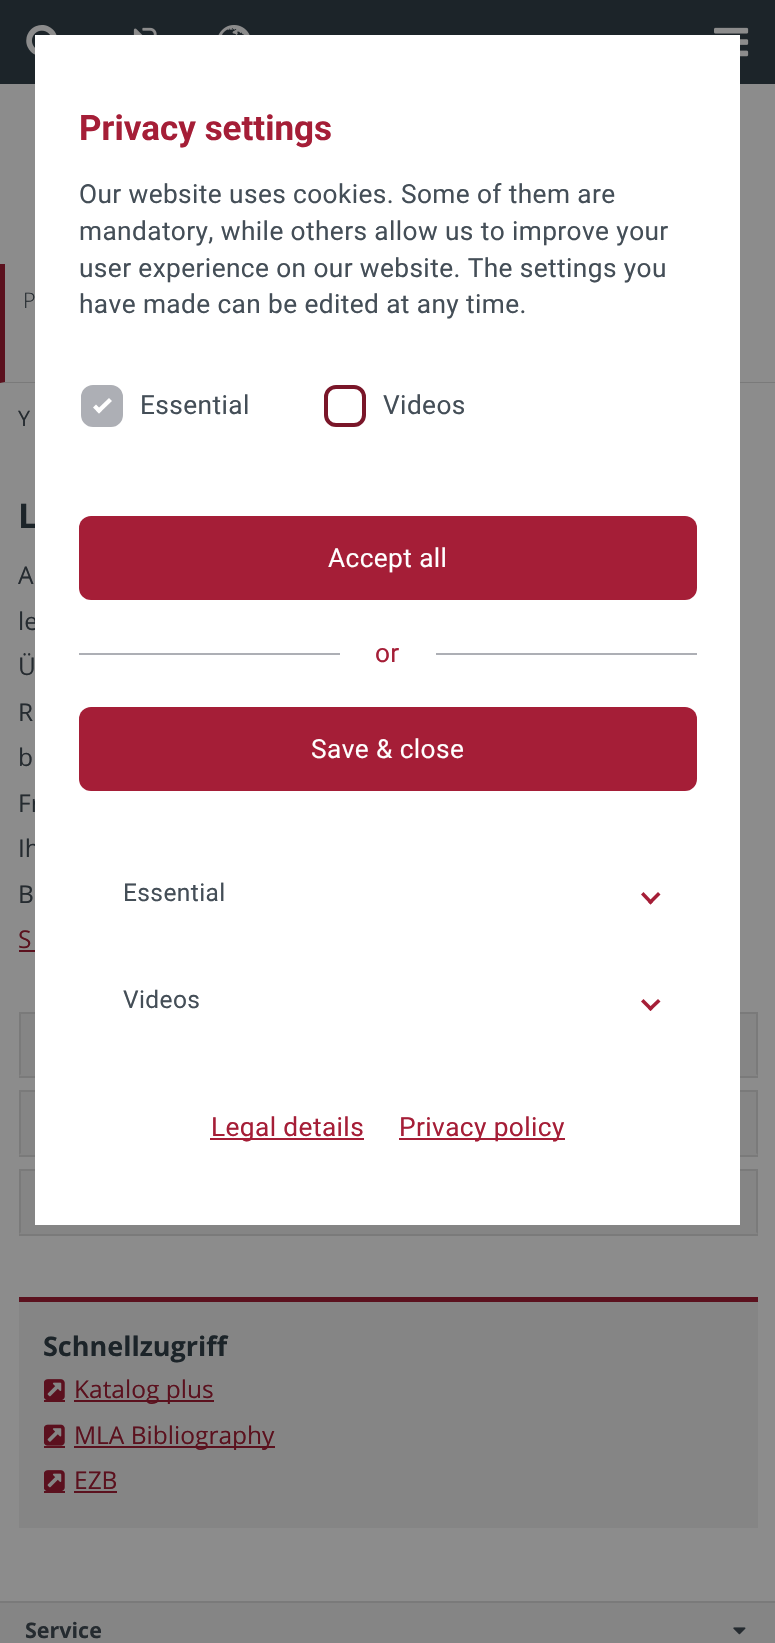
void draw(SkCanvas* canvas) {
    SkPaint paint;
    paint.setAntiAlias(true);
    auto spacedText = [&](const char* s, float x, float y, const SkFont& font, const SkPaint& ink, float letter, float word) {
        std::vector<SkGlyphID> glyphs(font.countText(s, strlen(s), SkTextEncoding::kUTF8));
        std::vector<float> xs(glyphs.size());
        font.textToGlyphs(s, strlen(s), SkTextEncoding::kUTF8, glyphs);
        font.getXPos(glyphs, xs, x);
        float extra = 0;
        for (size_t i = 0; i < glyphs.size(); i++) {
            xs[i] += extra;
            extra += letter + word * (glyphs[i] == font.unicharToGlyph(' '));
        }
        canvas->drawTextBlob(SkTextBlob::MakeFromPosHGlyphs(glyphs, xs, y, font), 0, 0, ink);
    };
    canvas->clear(0xFF8C8C8C);
    paint.setColor(0xFF1C2429);
    canvas->drawRect(SkRect::MakeXYWH(0, 0, 775, 84), paint);
    canvas->drawImageRect(SkImages::DeferredFromEncodedData(SkData::MakeFromFileName("img1.png")), SkRect::MakeXYWH(26, 25, 31, 30), SkSamplingOptions());
    canvas->drawImageRect(SkImages::DeferredFromEncodedData(SkData::MakeFromFileName("img4.png")), SkRect::MakeXYWH(714, 27, 35, 30), SkSamplingOptions());
    paint.setColor(0xFF7A7A7A);
    canvas->drawPath(SkPathBuilder().moveTo(775, 383).lineTo(0, 383).lineTo(5, 382).lineTo(775, 382).close().detach(), paint);
    SkFont font1(fontMgr->matchFamilyStyle("Open Sans", SkFontStyle::Bold()), 34);
    font1.setSubpixel(true);
    paint.setColor(0xFF1C2429);
    canvas->drawString("L", 18, 528, font1, paint);
    SkFont font2(fontMgr->matchFamilyStyle("Open Sans", SkFontStyle::Normal()), 24.5f);
    font2.setSubpixel(true);
    paint.setColor(0xFF252B30);
    canvas->drawString("le", 18, 630, font2, paint);
    canvas->drawString("Fr", 18, 812, font2, paint);
    canvas->drawString("Ih", 18, 857, font2, paint);
    paint.setColor(0xFF7A7A7A);
    canvas->drawRect(SkRect::MakeXYWH(19, 1076, 739, 2), paint);
    paint.setColor(0xFF858585);
    canvas->drawRect(SkRect::MakeXYWH(19, 1014, 739, 62), paint);
    paint.setColor(0xFF7A7A7A);
    canvas->drawRect(SkRect::MakeXYWH(19, 1012, 739, 2), paint);
    canvas->drawRect(SkRect::MakeXYWH(19, 1155, 739, 2), paint);
    paint.setColor(0xFF858585);
    canvas->drawRect(SkRect::MakeXYWH(19, 1092, 739, 63), paint);
    paint.setColor(0xFF7A7A7A);
    canvas->drawRect(SkRect::MakeXYWH(19, 1090, 739, 2), paint);
    paint.setColor(0xFF858585);
    canvas->drawRect(SkRect::MakeXYWH(19, 1171, 739, 63), paint);
    paint.setColor(0xFF7A7A7A);
    canvas->drawRect(SkRect::MakeXYWH(19, 1169, 739, 2), paint);
    paint.setColor(0xFFFFFFFF);
    canvas->drawRect(SkRect::MakeXYWH(35, 35, 705, 1190), paint);
    SkFont font3(fontMgr->matchFamilyStyle("Roboto", SkFontStyle::Bold()), 35);
    font3.setSubpixel(true);
    paint.setColor(0xFFA51E37);
    canvas->drawString("Privacy settings", 79, 140, font3, paint);
    SkFont font4(fontMgr->matchFamilyStyle("Roboto", SkFontStyle::Normal()), 26.25f);
    font4.setSubpixel(true);
    paint.setColor(0xFF444E57);
    spacedText("Our website uses cookies. Some of them are", 79, 203, font4, paint, 0.4f, 0);
    spacedText("mandatory, while others allow us to improve your", 79, 240, font4, paint, 0.4f, 0);
    spacedText("user experience on our website. The settings you", 79, 277, font4, paint, 0.4f, 0);
    spacedText("have made can be edited at any time.", 79, 313, font4, paint, 0.4f, 0);
    paint.setColor(0xFFADAFB5);
    canvas->drawRoundRect(SkRect::MakeXYWH(83, 387, 38, 38), 10, 10, paint);
    paint.setStyle(SkPaint::kStroke_Style);
    paint.setStrokeWidth(4);
    canvas->drawRoundRect(SkRect::MakeXYWH(83, 387, 38, 38), 10, 10, paint);
    paint.setStyle(SkPaint::kFill_Style);
    paint.setColor(0xFF444E57);
    spacedText("Essential", 140, 414, font4, paint, 0.4f, 0);
    paint.setColor(0xFFFFFFFF);
    canvas->drawPath(SkPathBuilder().moveTo(96, 410.5f).lineTo(109, 398).lineTo(112, 401).lineTo(99, 413.5f).close().detach(), paint);
    canvas->drawPath(SkPathBuilder().moveTo(93, 407.5f).lineTo(96, 404.5f).lineTo(102, 410.5f).lineTo(99, 413.5f).close().detach(), paint);
    paint.setStyle(SkPaint::kStroke_Style);
    paint.setColor(0xFF7A1629);
    canvas->drawRoundRect(SkRect::MakeXYWH(326, 387, 38, 38), 10, 10, paint);
    paint.setStyle(SkPaint::kFill_Style);
    paint.setColor(0xFF444E57);
    spacedText("Videos", 383, 414, font4, paint, 0.4f, 0);
    paint.setColor(0xFFA51E37);
    canvas->drawRoundRect(SkRect::MakeXYWH(79, 516, 618, 84), 12, 12, paint);
    paint.setColor(0xFFFFFFFF);
    spacedText("Accept all", 328, 567, font4, paint, 0.4f, 0);
    paint.setColor(0xFFADAFB5);
    canvas->drawRect(SkRect::MakeXYWH(79, 653, 261, 2), paint);
    paint.setColor(0xFFA51E37);
    spacedText("or", 375, 662, font4, paint, 0.4f, 0);
    paint.setColor(0xFFADAFB5);
    canvas->drawRect(SkRect::MakeXYWH(436, 653, 261, 2), paint);
    paint.setColor(0xFFA51E37);
    canvas->drawRoundRect(SkRect::MakeXYWH(79, 707, 618, 84), 12, 12, paint);
    paint.setColor(0xFFFFFFFF);
    spacedText("Save & close", 311, 758, font4, paint, 0.4f, 0);
    SkFont font5(fontMgr->matchFamilyStyle("Roboto", SkFontStyle::Normal()), 24.5f);
    font5.setSubpixel(true);
    paint.setColor(0xFF444E57);
    spacedText("Essential", 123, 901, font5, paint, 0.4f, 0);
    paint.setColor(0xFFA51E37);
    canvas->drawPath(SkPathBuilder().moveTo(658, 892).lineTo(660.5f, 894.5f).lineTo(650.5f, 904.5f).lineTo(648, 902).close().detach(), paint);
    canvas->drawPath(SkPathBuilder().moveTo(643.5f, 892).lineTo(653, 902).lineTo(650.5f, 904.5f).lineTo(641, 894.5f).close().detach(), paint);
    paint.setColor(0xFF444E57);
    spacedText("Videos", 123, 1008, font5, paint, 0.4f, 0);
    paint.setColor(0xFFA51E37);
    canvas->drawPath(SkPathBuilder().moveTo(658, 999).lineTo(660.5f, 1001.5f).lineTo(650.5f, 1011).lineTo(648, 1008.5f).close().detach(), paint);
    canvas->drawPath(SkPathBuilder().moveTo(643.5f, 999).lineTo(653, 1008.5f).lineTo(650.5f, 1011).lineTo(641, 1001.5f).close().detach(), paint);
    canvas->drawRect(SkRect::MakeXYWH(210, 1138, 154, 2), paint);
    spacedText("Legal details", 211, 1136, font4, paint, 0.4f, 0);
    canvas->drawRect(SkRect::MakeXYWH(399, 1138, 166, 2), paint);
    spacedText("Privacy policy", 399, 1136, font4, paint, 0.4f, 0);
    canvas->drawImageRect(SkImages::DeferredFromEncodedData(SkData::MakeFromFileName("img2.png")), SkRect::MakeXYWH(133, 27, 24, 8), SkSamplingOptions());
    canvas->drawImageRect(SkImages::DeferredFromEncodedData(SkData::MakeFromFileName("img3.png")), SkRect::MakeXYWH(218, 25, 32, 10), SkSamplingOptions());
    paint.setColor(0xFF5B111E);
    canvas->drawPath(SkPathBuilder().moveTo(0, 383).lineTo(0, 264).lineTo(5, 264).lineTo(5, 382).close().detach(), paint);
    SkFont font6(fontMgr->matchFamilyStyle("Open Sans", SkFontStyle(300, SkFontStyle::kNormal_Width, SkFontStyle::kUpright_Slant)), 21.5f);
    font6.setSubpixel(true);
    paint.setColor(0xFF252B30);
    canvas->drawString("P", 23, 308, font6, paint);
    SkFont font7(fontMgr->matchFamilyStyle("Open Sans", SkFontStyle::Normal()), 21.5f);
    font7.setSubpixel(true);
    canvas->drawString("Y", 18, 426, font7, paint);
    canvas->drawString("A", 18, 584, font2, paint);
    canvas->drawString("Ü", 18, 675, font2, paint);
    canvas->drawString("R", 18, 721, font2, paint);
    canvas->drawString("b", 18, 766, font2, paint);
    canvas->drawString("B", 18, 903, font2, paint);
    paint.setColor(0xFF5B111E);
    canvas->drawString("S", 18, 948, font2, paint);
    canvas->drawRect(SkRect::MakeXYWH(19, 950, 16, 2), paint);
    paint.setColor(0xFF7A7A7A);
    canvas->drawPath(SkPathBuilder().moveTo(758, 1012).lineTo(758, 1076).lineTo(756, 1074).lineTo(756, 1013).close().detach(), paint);
    canvas->drawPath(SkPathBuilder().moveTo(19, 1076).lineTo(19, 1012).lineTo(21, 1013).lineTo(21, 1074).close().detach(), paint);
    canvas->drawPath(SkPathBuilder().moveTo(758, 1090).lineTo(758, 1155).lineTo(756, 1153).lineTo(756, 1092).close().detach(), paint);
    canvas->drawPath(SkPathBuilder().moveTo(19, 1155).lineTo(19, 1090).lineTo(21, 1092).lineTo(21, 1153).close().detach(), paint);
    canvas->drawRect(SkRect::MakeXYWH(19, 1234, 739, 2), paint);
    canvas->drawPath(SkPathBuilder().moveTo(758, 1169).lineTo(758, 1234).lineTo(756, 1232).lineTo(756, 1171).close().detach(), paint);
    canvas->drawPath(SkPathBuilder().moveTo(19, 1234).lineTo(19, 1169).lineTo(21, 1171).lineTo(21, 1232).close().detach(), paint);
    paint.setColor(0xFF858585);
    canvas->drawRect(SkRect::MakeXYWH(19, 1302, 739, 226), paint);
    paint.setColor(0xFF5B111E);
    canvas->drawRect(SkRect::MakeXYWH(19, 1297, 739, 5), paint);
    SkFont font8(fontMgr->matchFamilyStyle("Open Sans", SkFontStyle::Bold()), 27);
    font8.setSubpixel(true);
    paint.setColor(0xFF1C2429);
    canvas->drawString("Schnellzugriff", 43, 1356, font8, paint);
    canvas->drawImageRect(SkImages::DeferredFromEncodedData(SkData::MakeFromFileName("img5.png")), SkRect::MakeXYWH(44, 1379, 21, 21), SkSamplingOptions());
    paint.setColor(0xFF5B111E);
    canvas->drawRect(SkRect::MakeXYWH(74, 1400, 140, 2), paint);
    canvas->drawString("Katalog plus", 74, 1398, font2, paint);
    canvas->drawRect(SkRect::MakeXYWH(44, 1400, 21, 2), paint);
    canvas->drawImageRect(SkImages::DeferredFromEncodedData(SkData::MakeFromFileName("img6.png")), SkRect::MakeXYWH(44, 1424, 21, 22), SkSamplingOptions());
    canvas->drawRect(SkRect::MakeXYWH(74, 1446, 201, 2), paint);
    canvas->drawString("MLA Bibliography", 74, 1444, font2, paint);
    canvas->drawRect(SkRect::MakeXYWH(44, 1446, 21, 2), paint);
    canvas->drawImageRect(SkImages::DeferredFromEncodedData(SkData::MakeFromFileName("img5.png")), SkRect::MakeXYWH(44, 1470, 21, 21), SkSamplingOptions());
    canvas->drawString("EZB", 74, 1489, font2, paint);
    canvas->drawRect(SkRect::MakeXYWH(74, 1491, 43, 2), paint);
    canvas->drawRect(SkRect::MakeXYWH(44, 1491, 21, 2), paint);
    paint.setColor(0xFF858585);
    canvas->drawRect(SkRect::MakeXYWH(0, 1603, 775, 40), paint);
    paint.setColor(0xFF7A7A7A);
    canvas->drawRect(SkRect::MakeXYWH(0, 1601, 775, 2), paint);
    SkFont font9(fontMgr->matchFamilyStyle("Open Sans", SkFontStyle::Bold()), 21.5f);
    font9.setSubpixel(true);
    paint.setColor(0xFF252B30);
    canvas->drawString("Service", 25, 1638, font9, paint);
    canvas->drawImageRect(SkImages::DeferredFromEncodedData(SkData::MakeFromFileName("img7.png")), SkRect::MakeXYWH(733, 1627, 13, 8), SkSamplingOptions());
}
